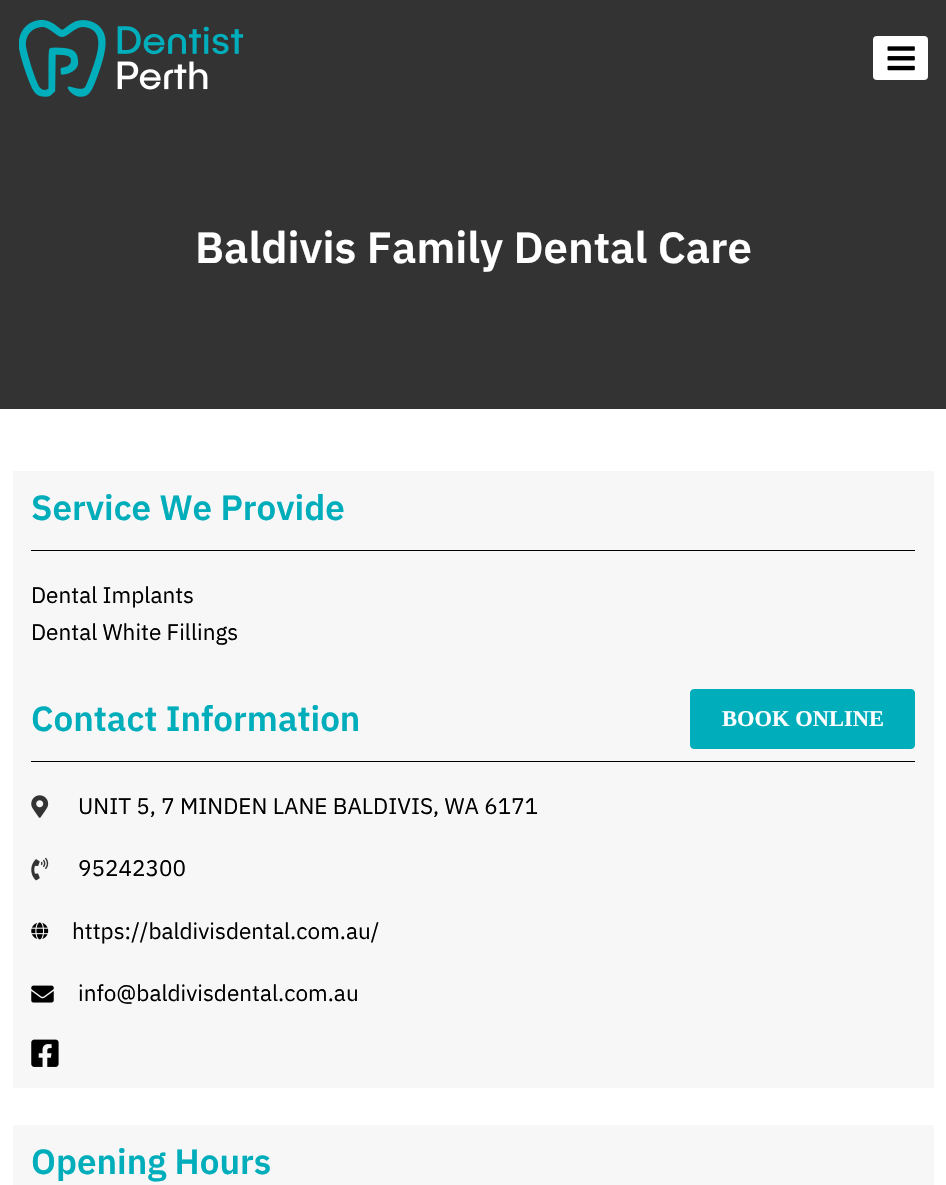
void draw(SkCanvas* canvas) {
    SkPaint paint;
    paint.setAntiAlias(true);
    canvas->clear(0xFFFFFFFF);
    paint.setColor(0xFF333333);
    canvas->drawRect(SkRect::MakeXYWH(0, 0, 946, 409), paint);
    canvas->drawImageRect(SkImages::DeferredFromEncodedData(SkData::MakeFromFileName("img1.png")), SkRect::MakeXYWH(19, 19, 225, 78), SkSamplingOptions());
    paint.setColor(0xFFFFFFFF);
    canvas->drawRoundRect(SkRect::MakeXYWH(873, 36, 55, 44), 4, 4, paint);
    canvas->drawImageRect(SkImages::DeferredFromEncodedData(SkData::MakeFromFileName("img2.png")), SkRect::MakeXYWH(887, 46, 28, 25), SkSamplingOptions());
    SkFont font1(fontMgr->matchFamilyStyle("IBM Plex Sans", SkFontStyle(600, SkFontStyle::kNormal_Width, SkFontStyle::kUpright_Slant)), 43.75f);
    font1.setSubpixel(true);
    canvas->drawString("Baldivis Family Dental Care", 195, 263, font1, paint);
    paint.setColor(0xFFF7F7F7);
    canvas->drawRect(SkRect::MakeXYWH(13, 471, 921, 617), paint);
    SkFont font2(fontMgr->matchFamilyStyle("IBM Plex Sans", SkFontStyle(600, SkFontStyle::kNormal_Width, SkFontStyle::kUpright_Slant)), 35);
    font2.setSubpixel(true);
    paint.setColor(0xFF00ADBB);
    canvas->drawString("Service We Provide", 31, 520, font2, paint);
    paint.setColor(0xFF000000);
    canvas->drawRect(SkRect::MakeXYWH(31, 550, 884, 1), paint);
    SkFont font3(fontMgr->matchFamilyStyle("IBM Plex Sans", SkFontStyle::Normal()), 22.5f);
    font3.setSubpixel(true);
    canvas->drawString("Dental Implants", 31, 603, font3, paint);
    canvas->drawString("Dental White Fillings", 31, 640, font3, paint);
    paint.setColor(0xFF00ADBB);
    canvas->drawString("Contact Information", 31, 731, font2, paint);
    canvas->drawRoundRect(SkRect::MakeXYWH(690.5f, 689.5f, 224, 59), 3.5f, 3.5f, paint);
    paint.setStyle(SkPaint::kStroke_Style);
    paint.setStrokeWidth(1);
    canvas->drawRoundRect(SkRect::MakeXYWH(690.5f, 689.5f, 224, 59), 3.5f, 3.5f, paint);
    SkFont font4(fontMgr->matchFamilyStyle("Liberation Serif", SkFontStyle::Bold()), 22.5f);
    font4.setSubpixel(true);
    paint.setStyle(SkPaint::kFill_Style);
    paint.setColor(0xFFFFFFFF);
    canvas->drawString("BOOK ONLINE", 722, 726, font4, paint);
    paint.setColor(0xFF000000);
    canvas->drawRect(SkRect::MakeXYWH(31, 761, 884, 1), paint);
    canvas->drawImageRect(SkImages::DeferredFromEncodedData(SkData::MakeFromFileName("img3.png")), SkRect::MakeXYWH(31, 795, 18, 23), SkSamplingOptions());
    canvas->drawString("UNIT 5, 7 MINDEN LANE BALDIVIS, WA 6171", 78, 814, font3, paint);
    canvas->drawImageRect(SkImages::DeferredFromEncodedData(SkData::MakeFromFileName("img4.png")), SkRect::MakeXYWH(31, 857, 18, 24), SkSamplingOptions());
    canvas->drawString("95242300", 78, 876, font3, paint);
    canvas->drawImageRect(SkImages::DeferredFromEncodedData(SkData::MakeFromFileName("img5.png")), SkRect::MakeXYWH(31, 922, 18, 18), SkSamplingOptions());
    canvas->drawString("https://baldivisdental.com.au/", 72, 939, font3, paint);
    canvas->drawImageRect(SkImages::DeferredFromEncodedData(SkData::MakeFromFileName("img6.png")), SkRect::MakeXYWH(31, 985, 23, 18), SkSamplingOptions());
    canvas->drawString("info@baldivisdental.com.au", 78, 1001, font3, paint);
    canvas->drawImageRect(SkImages::DeferredFromEncodedData(SkData::MakeFromFileName("img7.png")), SkRect::MakeXYWH(31, 1039, 28, 28), SkSamplingOptions());
    paint.setColor(0xFFF7F7F7);
    canvas->drawRect(SkRect::MakeXYWH(13, 1125, 921, 60), paint);
    paint.setColor(0xFF00ADBB);
    canvas->drawString("Opening Hours", 31, 1174, font2, paint);
}
